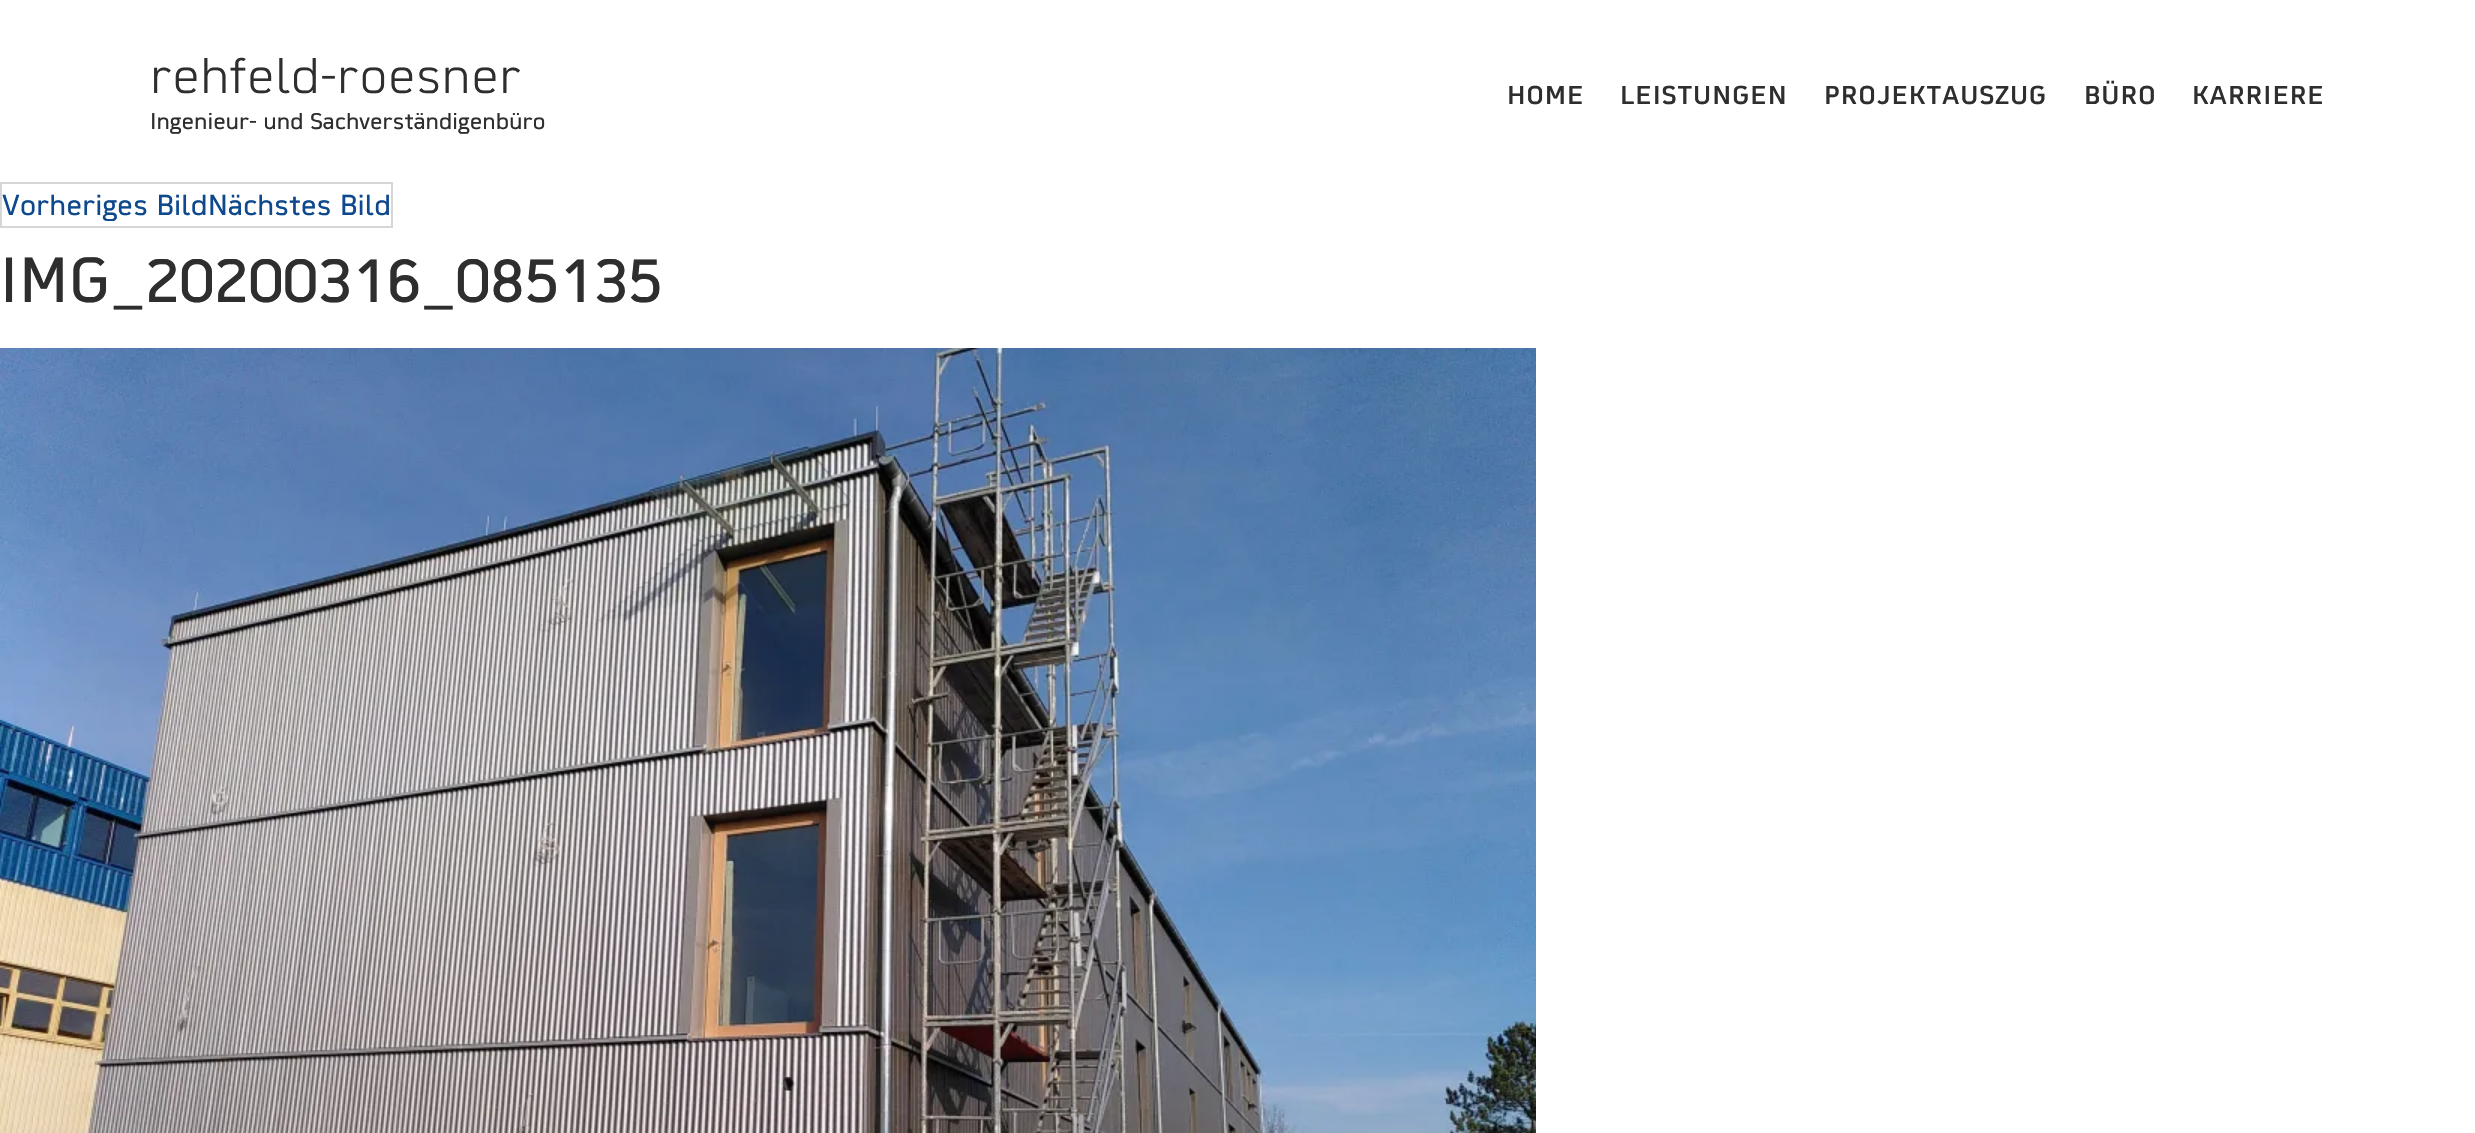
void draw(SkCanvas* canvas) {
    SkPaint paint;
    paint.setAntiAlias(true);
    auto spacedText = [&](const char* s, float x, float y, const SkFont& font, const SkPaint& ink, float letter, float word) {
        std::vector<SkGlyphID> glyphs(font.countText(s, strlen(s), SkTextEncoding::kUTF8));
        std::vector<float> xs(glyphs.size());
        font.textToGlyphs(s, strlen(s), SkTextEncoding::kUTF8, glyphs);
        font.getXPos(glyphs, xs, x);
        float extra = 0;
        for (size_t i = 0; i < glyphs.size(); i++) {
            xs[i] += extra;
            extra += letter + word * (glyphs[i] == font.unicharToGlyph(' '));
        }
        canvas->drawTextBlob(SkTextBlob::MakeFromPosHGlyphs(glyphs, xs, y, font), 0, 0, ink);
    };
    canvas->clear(0xFFFFFFFF);
    SkFont font1(fontMgr->matchFamilyStyle("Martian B", SkFontStyle(300, SkFontStyle::kNormal_Width, SkFontStyle::kUpright_Slant)), 49.5f);
    font1.setSubpixel(true);
    paint.setColor(0xFF2E2E2E);
    spacedText("rehfeld-roesner", 150, 93, font1, paint, 0.5f, 0);
    SkFont font2(fontMgr->matchFamilyStyle("Martian B", SkFontStyle::Normal()), 22.5f);
    font2.setSubpixel(true);
    canvas->drawString("Ingenieur- und Sachverständigenbüro", 150, 129, font2, paint);
    SkFont font3(fontMgr->matchFamilyStyle("Martian B", SkFontStyle(500, SkFontStyle::kNormal_Width, SkFontStyle::kUpright_Slant)), 25.5f);
    font3.setSubpixel(true);
    spacedText("HOME", 1507, 104, font3, paint, 1, 0);
    spacedText("LEISTUNGEN", 1620, 104, font3, paint, 1, 0);
    spacedText("PROJEKTAUSZUG", 1824, 104, font3, paint, 1, 0);
    spacedText("BÜRO", 2084, 104, font3, paint, 1, 0);
    spacedText("KARRIERE", 2192, 104, font3, paint, 1, 0);
    paint.setStyle(SkPaint::kStroke_Style);
    paint.setStrokeWidth(2);
    paint.setColor(0xFFD6D6D6);
    canvas->drawRect(SkRect::MakeXYWH(1, 183, 391, 44), paint);
    SkFont font4(fontMgr->matchFamilyStyle("Martian B", SkFontStyle::Normal()), 28.5f);
    font4.setSubpixel(true);
    paint.setStyle(SkPaint::kFill_Style);
    paint.setColor(0xFF0E488D);
    canvas->drawString("Vorheriges BildNächstes Bild", 2, 215, font4, paint);
    SkFont font5(fontMgr->matchFamilyStyle("Martian B", SkFontStyle::Normal()), 62.75f);
    font5.setSubpixel(true);
    paint.setColor(0xFF2E2E2E);
    spacedText("IMG_20200316_085135", 0, 302, font5, paint, 0.6f, 0);
    canvas->drawImageRect(SkImages::DeferredFromEncodedData(SkData::MakeFromFileName("img1.png")), SkRect::MakeXYWH(0, 348, 1536, 785), SkSamplingOptions());
}
